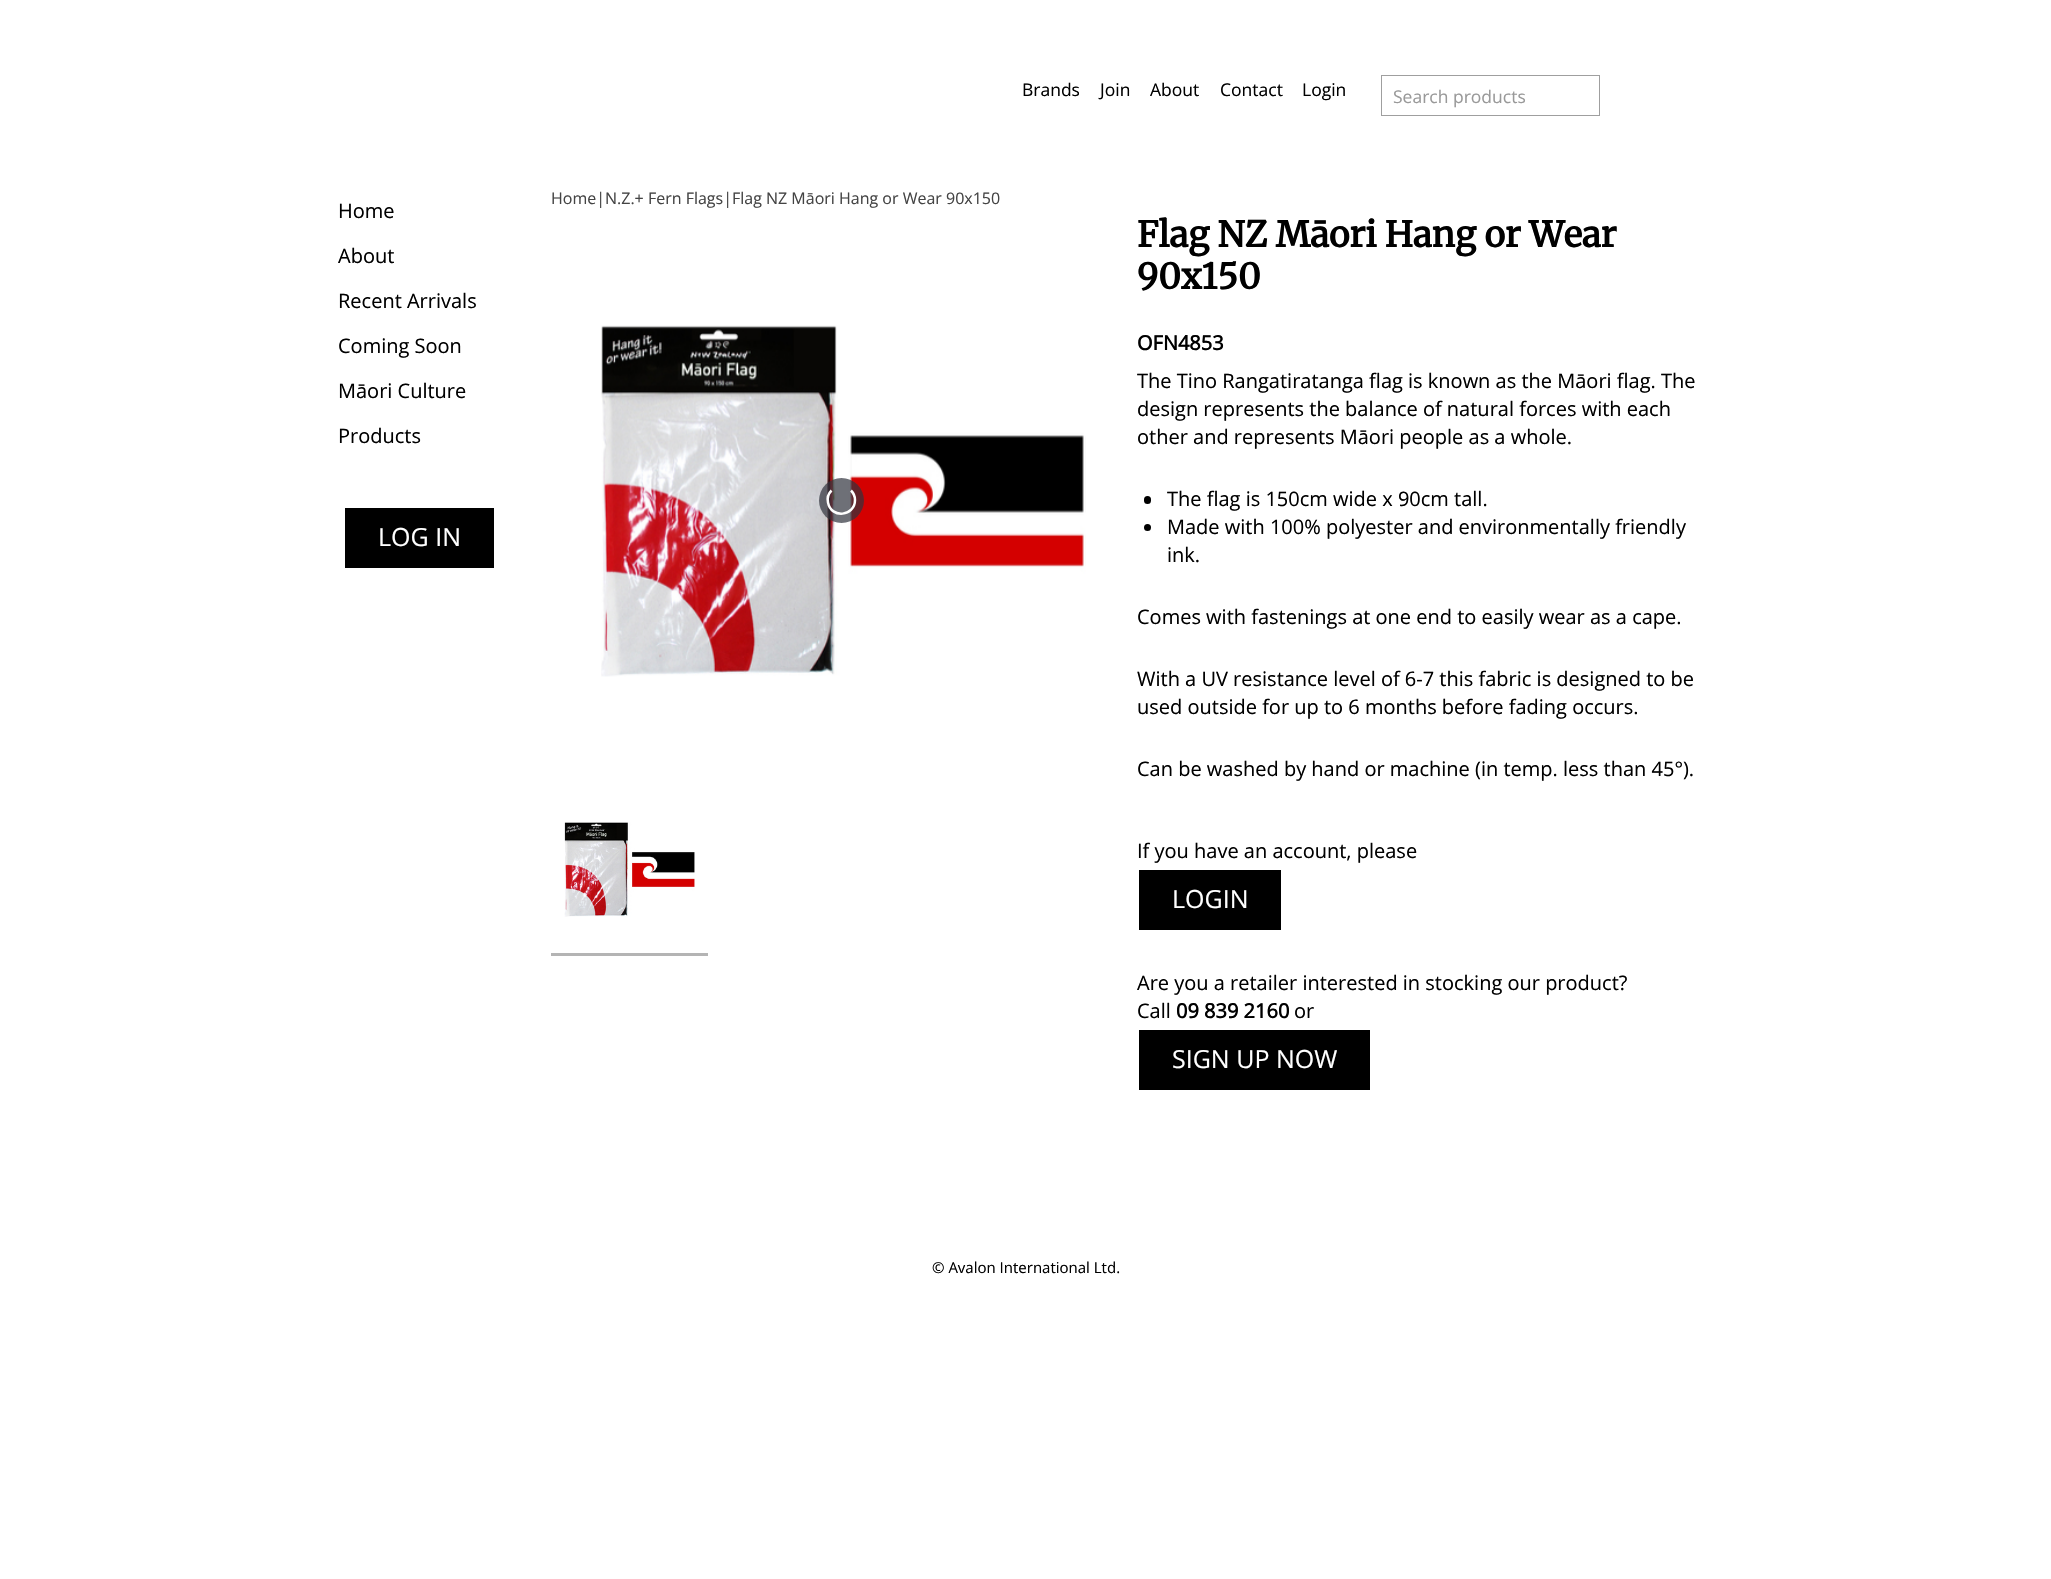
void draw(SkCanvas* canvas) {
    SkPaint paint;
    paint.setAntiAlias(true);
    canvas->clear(0xFFFFFFFF);
    SkFont font1(fontMgr->matchFamilyStyle("Open Sans", SkFontStyle::Normal()), 17.5f);
    font1.setSubpixel(true);
    paint.setColor(0xFF000000);
    canvas->drawString("Brands", 1022, 96, font1, paint);
    canvas->drawString("Join", 1100, 96, font1, paint);
    canvas->drawString("About", 1150, 96, font1, paint);
    canvas->drawString("Contact", 1220, 96, font1, paint);
    canvas->drawString("Login", 1302, 96, font1, paint);
    paint.setStyle(SkPaint::kStroke_Style);
    paint.setStrokeWidth(1);
    paint.setColor(0xFF9F9F9F);
    canvas->drawRect(SkRect::MakeXYWH(1381.5f, 75.5f, 218, 40), paint);
    paint.setStyle(SkPaint::kFill_Style);
    paint.setColor(0xFF999999);
    canvas->drawString("Search products", 1393, 103, font1, paint);
    SkFont font2(fontMgr->matchFamilyStyle("Open Sans", SkFontStyle::Normal()), 20);
    font2.setSubpixel(true);
    paint.setColor(0xFF000000);
    canvas->drawString("Home", 338, 218, font2, paint);
    canvas->drawString("About", 338, 263, font2, paint);
    canvas->drawString("Recent Arrivals", 338, 308, font2, paint);
    canvas->drawString("Coming Soon", 338, 353, font2, paint);
    canvas->drawString("Māori Culture", 338, 398, font2, paint);
    canvas->drawString("Products", 338, 443, font2, paint);
    canvas->drawRect(SkRect::MakeXYWH(345, 508, 149, 60), paint);
    SkFont font3(fontMgr->matchFamilyStyle("Open Sans", SkFontStyle::Normal()), 25);
    font3.setSubpixel(true);
    paint.setColor(0xFFFFFFFF);
    canvas->drawString("LOG IN", 378, 546, font3, paint);
    SkFont font4(fontMgr->matchFamilyStyle("Open Sans", SkFontStyle::Normal()), 16);
    font4.setSubpixel(true);
    paint.setColor(0xFF444444);
    canvas->drawString("Home|N.Z.+ Fern Flags|Flag NZ Māori Hang or Wear 90x150", 551, 204, font4, paint);
    canvas->drawImageRect(SkImages::DeferredFromEncodedData(SkData::MakeFromFileName("img1.png")), SkRect::MakeXYWH(601, 325, 485, 352), SkSamplingOptions());
    paint.setColor(0xB331333D);
    canvas->drawCircle(841.5f, 500.5f, 22.5f, paint);
    paint.setStyle(SkPaint::kStroke_Style);
    paint.setStrokeWidth(2.5f);
    paint.setColor(0xFFFFFFFF);
    canvas->drawPath(SkPathBuilder().moveTo(851, 490.5f).cubicTo(853.5f, 493, 855, 496.5f, 855, 500).cubicTo(855, 516.5f, 831, 519, 828, 502.5f).cubicTo(827, 498, 828.5f, 493.5f, 831.5f, 490.5f).detach(), paint);
    canvas->drawImageRect(SkImages::DeferredFromEncodedData(SkData::MakeFromFileName("img2.png")), SkRect::MakeXYWH(564, 822, 131, 95), SkSamplingOptions());
    paint.setStyle(SkPaint::kFill_Style);
    paint.setColor(0xFFB4B4B4);
    canvas->drawRect(SkRect::MakeXYWH(551, 953, 157, 3), paint);
    SkFont font5(fontMgr->matchFamilyStyle("Merriweather", SkFontStyle::Bold()), 35);
    font5.setSubpixel(true);
    paint.setColor(0xFF000000);
    canvas->drawString("Flag NZ Māori Hang or Wear", 1137, 247, font5, paint);
    canvas->drawString("90x150", 1137, 289, font5, paint);
    SkFont font6(fontMgr->matchFamilyStyle("Open Sans", SkFontStyle::Bold()), 20);
    font6.setSubpixel(true);
    canvas->drawString("OFN4853", 1137, 350, font6, paint);
    canvas->drawString("The Tino Rangatiratanga flag is known as the Māori flag. The", 1137, 388, font2, paint);
    canvas->drawString("design represents the balance of natural forces with each", 1137, 416, font2, paint);
    canvas->drawString("other and represents Māori people as a whole.", 1137, 444, font2, paint);
    canvas->drawRoundRect(SkRect::MakeXYWH(1144, 496, 7, 8), 3.5f, 3.5f, paint);
    canvas->drawString("The flag is 150cm wide x 90cm tall.", 1167, 506, font2, paint);
    canvas->drawCircle(1147.5f, 527.5f, 3.5f, paint);
    canvas->drawString("Made with 100% polyester and environmentally friendly", 1167, 534, font2, paint);
    canvas->drawString("ink.", 1167, 562, font2, paint);
    canvas->drawString("Comes with fastenings at one end to easily wear as a cape.", 1137, 624, font2, paint);
    canvas->drawString("With a UV resistance level of 6-7 this fabric is designed to be", 1137, 686, font2, paint);
    canvas->drawString("used outside for up to 6 months before fading occurs.", 1137, 714, font2, paint);
    canvas->drawString("Can be washed by hand or machine (in temp. less than 45°).", 1137, 776, font2, paint);
    canvas->drawString("If you have an account, please", 1137, 858, font2, paint);
    canvas->drawRect(SkRect::MakeXYWH(1139, 870, 142, 60), paint);
    paint.setColor(0xFFFFFFFF);
    canvas->drawString("LOGIN", 1172, 908, font3, paint);
    paint.setColor(0xFF000000);
    canvas->drawString("Are you a retailer interested in stocking our product?", 1137, 990, font2, paint);
    canvas->drawString("Call", 1137, 1018, font2, paint);
    canvas->drawString("09 839 2160", 1176, 1018, font6, paint);
    canvas->drawString("or", 1294, 1018, font2, paint);
    canvas->drawRect(SkRect::MakeXYWH(1139, 1030, 231, 60), paint);
    paint.setColor(0xFFFFFFFF);
    canvas->drawString("SIGN UP NOW", 1172, 1068, font3, paint);
    SkFont font7(fontMgr->matchFamilyStyle("Open Sans", SkFontStyle::Normal()), 15);
    font7.setSubpixel(true);
    paint.setColor(0xFF000000);
    canvas->drawString("© Avalon International Ltd.", 932, 1273, font7, paint);
}
